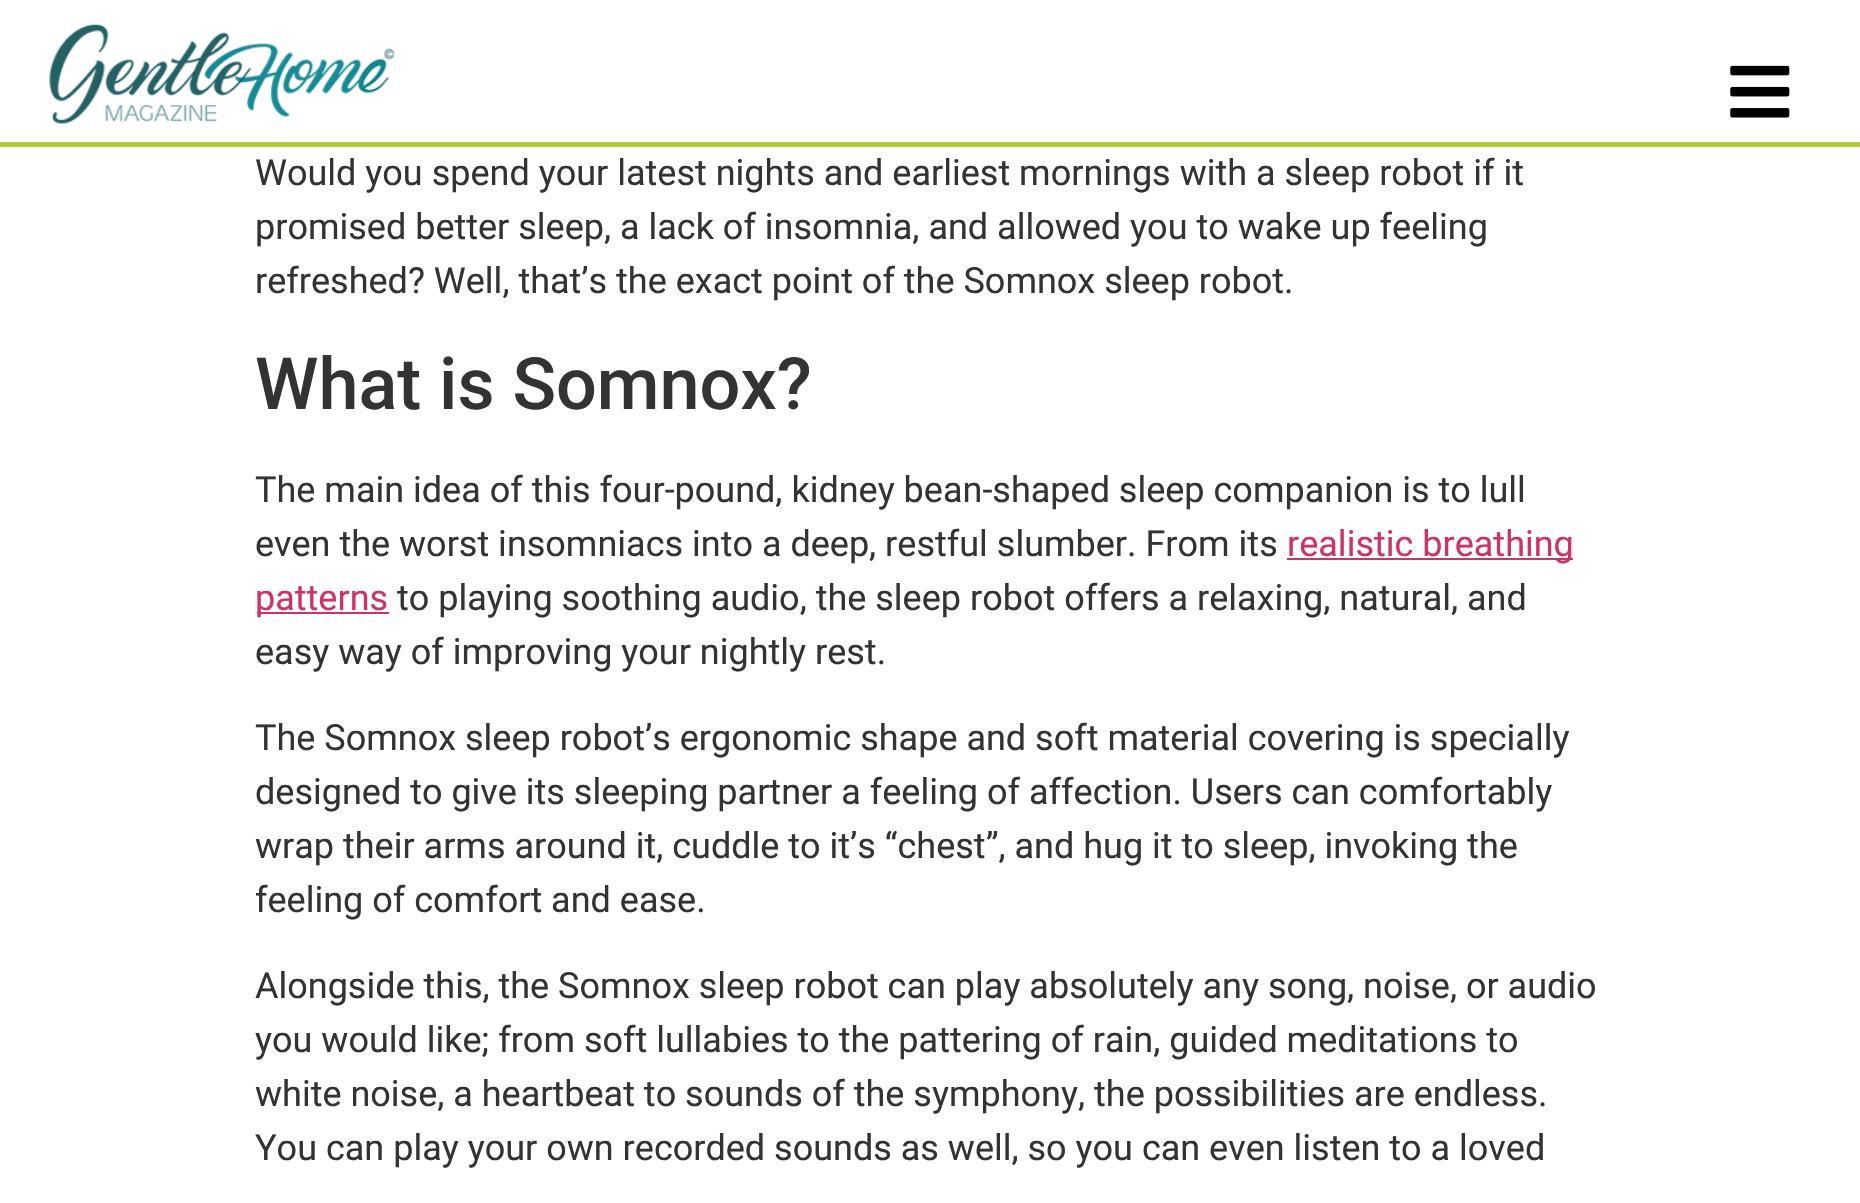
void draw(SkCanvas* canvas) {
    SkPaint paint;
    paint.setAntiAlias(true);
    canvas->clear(0xFFFFFFFF);
    paint.setColor(0xFFAFCA39);
    canvas->drawRect(SkRect::MakeXYWH(0, 142, 1860, 5), paint);
    canvas->drawImageRect(SkImages::DeferredFromEncodedData(SkData::MakeFromFileName("img1.png")), SkRect::MakeXYWH(49, 24, 346, 100), SkSamplingOptions());
    canvas->drawImageRect(SkImages::DeferredFromEncodedData(SkData::MakeFromFileName("img2.png")), SkRect::MakeXYWH(1730, 65, 60, 53), SkSamplingOptions());
    SkFont font1(fontMgr->matchFamilyStyle("Roboto", SkFontStyle::Normal()), 36);
    font1.setSubpixel(true);
    paint.setColor(0xFF333333);
    canvas->drawString("Would you spend your latest nights and earliest mornings with a sleep robot if it", 255, 185, font1, paint);
    canvas->drawString("promised better sleep, a lack of insomnia, and allowed you to wake up feeling", 255, 239, font1, paint);
    canvas->drawString("refreshed? Well, that’s the exact point of the Somnox sleep robot.", 255, 293, font1, paint);
    SkFont font2(fontMgr->matchFamilyStyle("Roboto", SkFontStyle(500, SkFontStyle::kNormal_Width, SkFontStyle::kUpright_Slant)), 72);
    font2.setSubpixel(true);
    canvas->drawString("What is Somnox?", 255, 409, font2, paint);
    canvas->drawString("The main idea of this four-pound, kidney bean-shaped sleep companion is to lull", 255, 502, font1, paint);
    canvas->drawString("even the worst insomniacs into a deep, restful slumber. From its", 255, 556, font1, paint);
    paint.setColor(0xFFCC3366);
    canvas->drawRect(SkRect::MakeXYWH(1287, 558, 286, 2), paint);
    canvas->drawString("realistic breathing", 1287, 556, font1, paint);
    canvas->drawRect(SkRect::MakeXYWH(257, 612, 132, 2), paint);
    canvas->drawString("patterns", 255, 610, font1, paint);
    paint.setColor(0xFF333333);
    canvas->drawString("to playing soothing audio, the sleep robot offers a relaxing, natural, and", 397, 610, font1, paint);
    canvas->drawString("easy way of improving your nightly rest.", 255, 664, font1, paint);
    canvas->drawString("The Somnox sleep robot’s ergonomic shape and soft material covering is specially", 255, 750, font1, paint);
    canvas->drawString("designed to give its sleeping partner a feeling of affection. Users can comfortably", 255, 804, font1, paint);
    canvas->drawString("wrap their arms around it, cuddle to it’s “chest”, and hug it to sleep, invoking the", 255, 858, font1, paint);
    canvas->drawString("feeling of comfort and ease.", 255, 912, font1, paint);
    canvas->drawString("Alongside this, the Somnox sleep robot can play absolutely any song, noise, or audio", 255, 998, font1, paint);
    canvas->drawString("you would like; from soft lullabies to the pattering of rain, guided meditations to", 255, 1052, font1, paint);
    canvas->drawString("white noise, a heartbeat to sounds of the symphony, the possibilities are endless.", 255, 1106, font1, paint);
    canvas->drawString("You can play your own recorded sounds as well, so you can even listen to a loved", 255, 1160, font1, paint);
}
